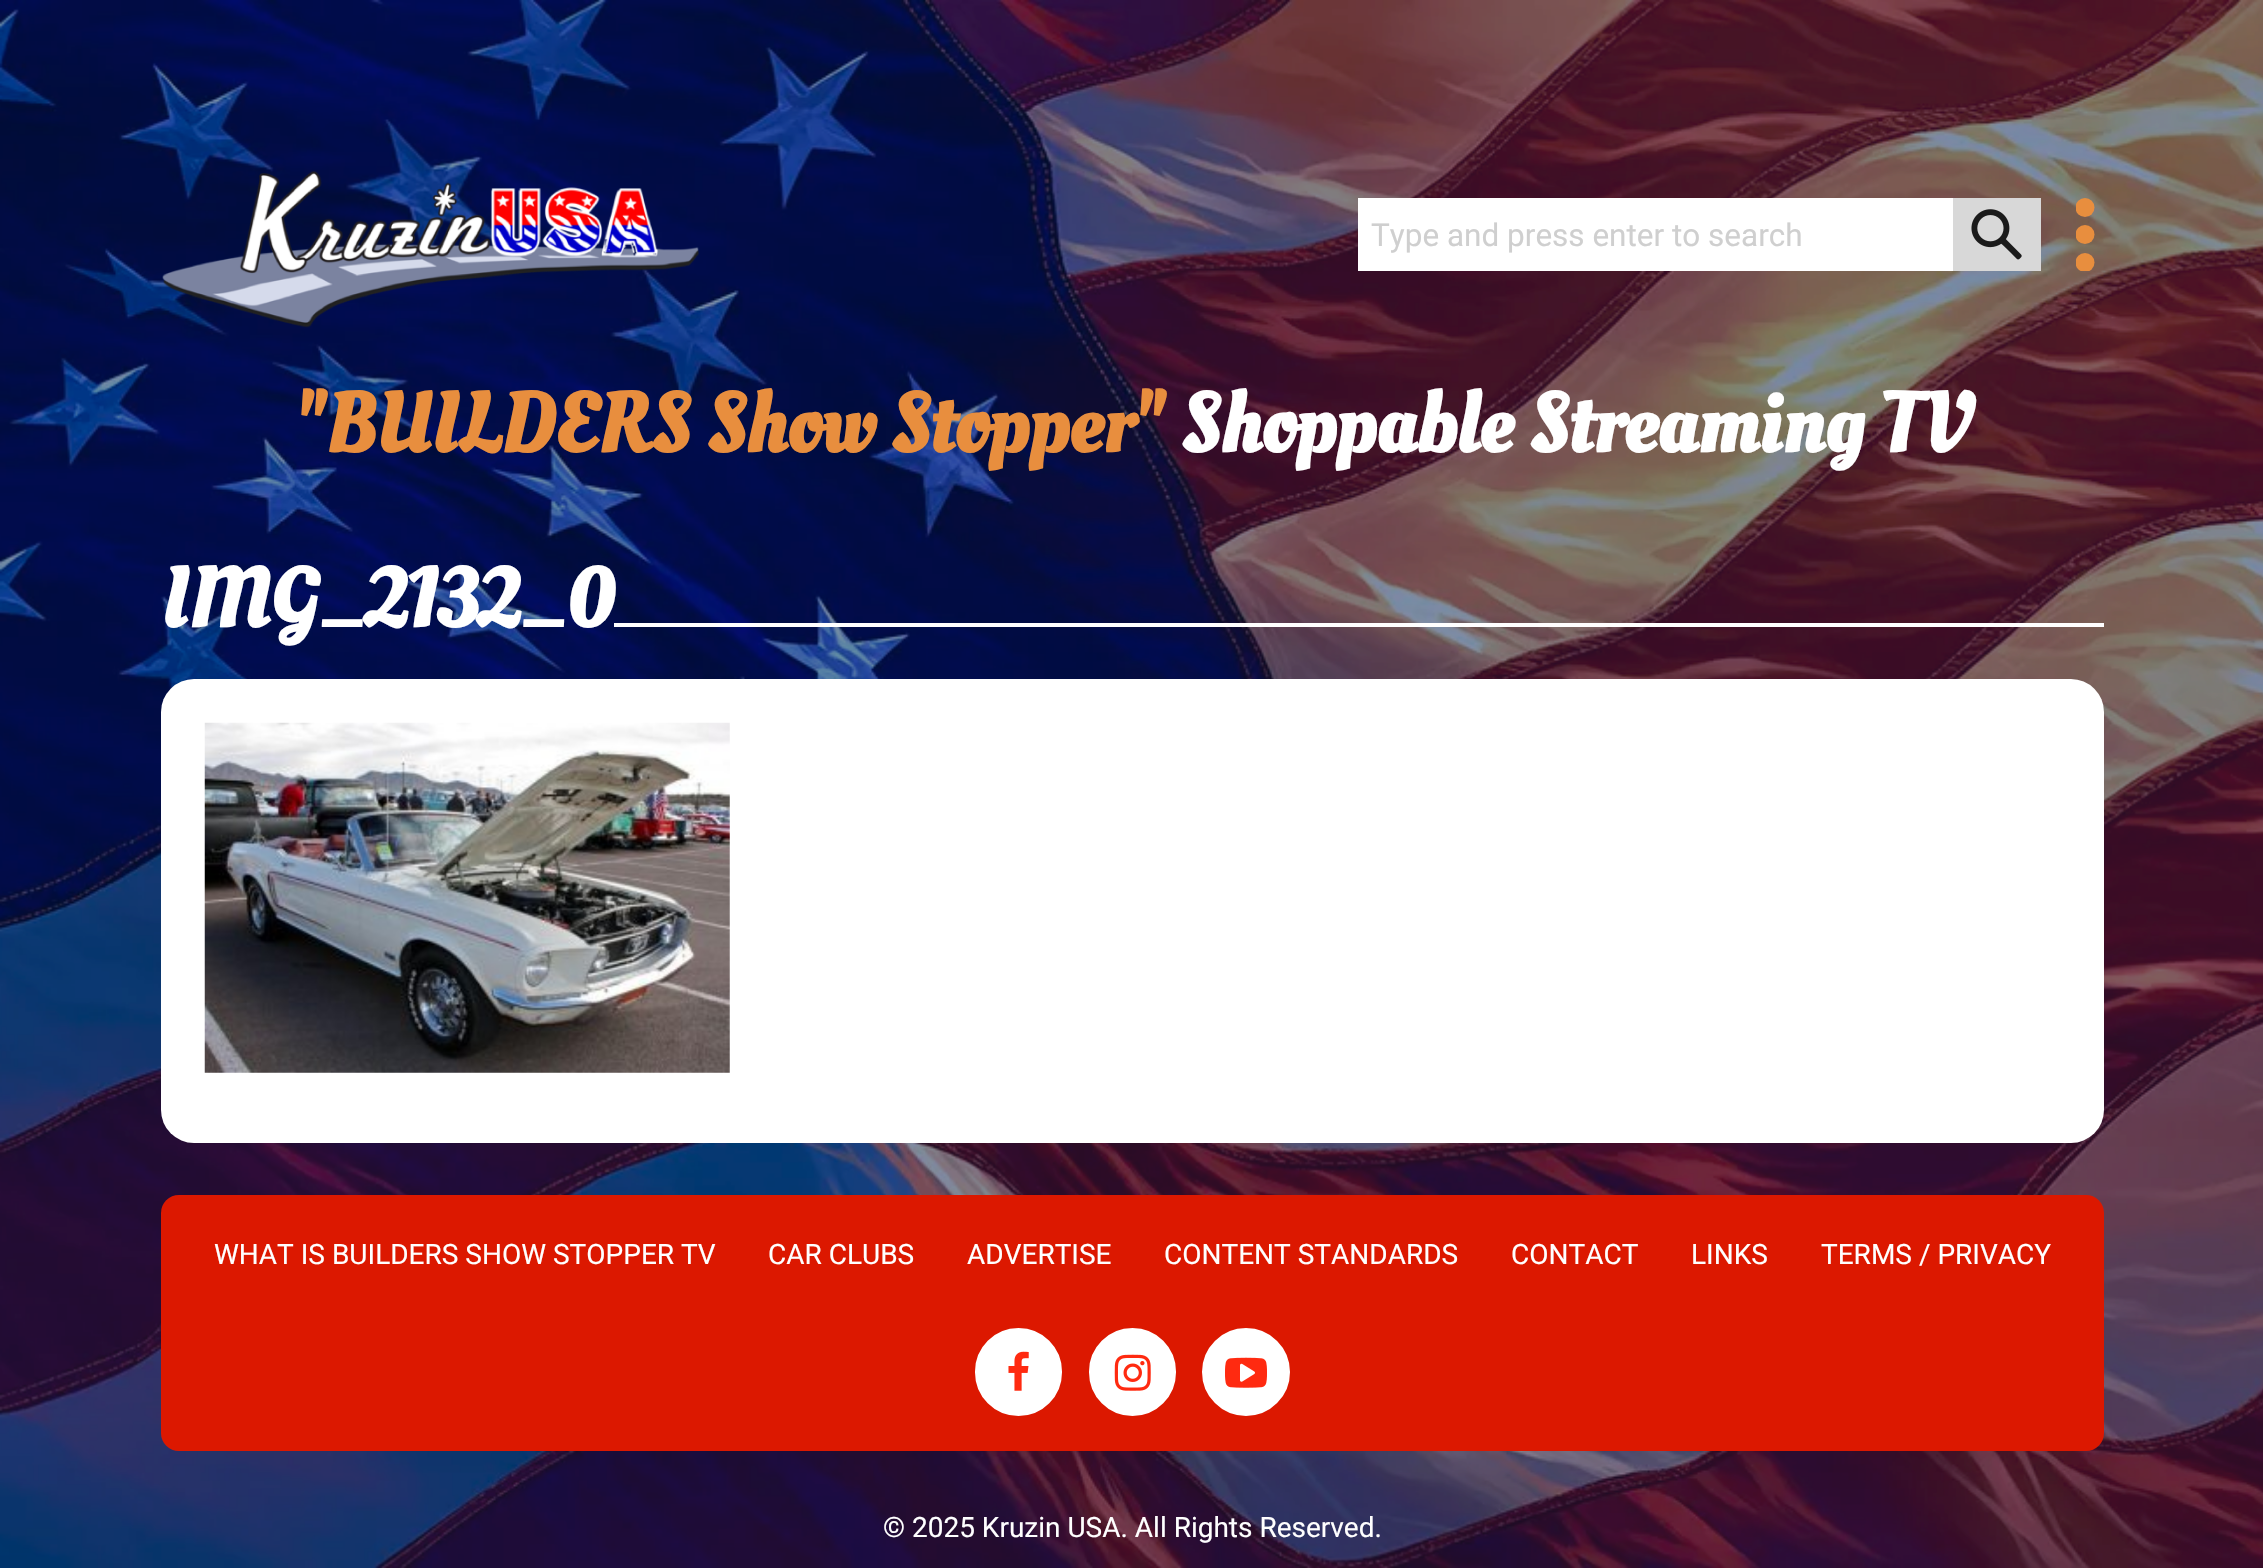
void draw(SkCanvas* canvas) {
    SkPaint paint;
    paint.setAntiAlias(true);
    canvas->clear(0xFFFFFFFF);
    canvas->drawImageRect(SkImages::DeferredFromEncodedData(SkData::MakeFromFileName("img1.png")), SkRect::MakeXYWH(0, 0, 2263, 1568), SkSamplingOptions());
    canvas->drawImageRect(SkImages::DeferredFromEncodedData(SkData::MakeFromFileName("img2.png")), SkRect::MakeXYWH(162, 171, 537, 157), SkSamplingOptions());
    paint.setColor(0xFFFFFFFF);
    canvas->drawRect(SkRect::MakeXYWH(1358, 198, 595, 73), paint);
    SkFont font1(fontMgr->matchFamilyStyle("Roboto", SkFontStyle::Normal()), 31.5f);
    font1.setSubpixel(true);
    paint.setColor(0xFFCFCFCF);
    canvas->drawString("Type and press enter to search", 1371, 246, font1, paint);
    paint.setColor(0xFFD8D8D8);
    canvas->drawRect(SkRect::MakeXYWH(1953, 198, 88, 73), paint);
    canvas->drawImageRect(SkImages::DeferredFromEncodedData(SkData::MakeFromFileName("img3.png")), SkRect::MakeXYWH(1971, 209, 51, 51), SkSamplingOptions());
    canvas->save();
    canvas->clipRect(SkRect::MakeXYWH(2076, 198, 19, 73));
    paint.setColor(0xFFE88E3E);
    canvas->drawCircle(2085, 207.5f, 9.5f, paint);
    canvas->drawCircle(2085, 234.5f, 9.5f, paint);
    canvas->drawCircle(2085, 262.5f, 9.5f, paint);
    canvas->restore();
    SkFont font2(fontMgr->matchFamilyStyle("Oleo Script", SkFontStyle::Bold()), 84);
    font2.setSubpixel(true);
    canvas->drawString("\"BUILDERS Show Stopper\"", 294, 452, font2, paint);
    paint.setColor(0xFFFFFFFF);
    canvas->drawString("Shoppable Streaming TV", 1181, 452, font2, paint);
    canvas->drawString("IMG_2132_0", 161, 627, font2, paint);
    canvas->drawRect(SkRect::MakeXYWH(614, 623, 1490, 4), paint);
    canvas->drawRoundRect(SkRect::MakeXYWH(161, 679, 1943, 464), 33, 33, paint);
    canvas->drawImageRect(SkImages::DeferredFromEncodedData(SkData::MakeFromFileName("img4.png")), SkRect::MakeXYWH(204, 722, 526, 351), SkSamplingOptions());
    paint.setColor(0xFFDC1800);
    canvas->drawRoundRect(SkRect::MakeXYWH(161, 1195, 1943, 256), 18, 18, paint);
    SkFont font3(fontMgr->matchFamilyStyle("Roboto", SkFontStyle::Normal()), 28);
    font3.setSubpixel(true);
    paint.setColor(0xFFFFFFFF);
    canvas->drawString("WHAT IS BUILDERS SHOW STOPPER TV", 214, 1264, font3, paint);
    canvas->drawString("CAR CLUBS", 768, 1264, font3, paint);
    canvas->drawString("ADVERTISE", 967, 1264, font3, paint);
    canvas->drawString("CONTENT STANDARDS", 1164, 1264, font3, paint);
    canvas->drawString("CONTACT", 1511, 1264, font3, paint);
    canvas->drawString("LINKS", 1691, 1264, font3, paint);
    canvas->drawString("TERMS / PRIVACY", 1821, 1264, font3, paint);
    canvas->drawRoundRect(SkRect::MakeXYWH(976, 1329, 85, 86), 42.5f, 42.5f, paint);
    paint.setStyle(SkPaint::kStroke_Style);
    paint.setStrokeWidth(2);
    canvas->drawRoundRect(SkRect::MakeXYWH(976, 1329, 85, 86), 42.5f, 42.5f, paint);
    canvas->drawImageRect(SkImages::DeferredFromEncodedData(SkData::MakeFromFileName("img5.png")), SkRect::MakeXYWH(1008, 1351, 21, 40), SkSamplingOptions());
    paint.setStyle(SkPaint::kFill_Style);
    canvas->drawRoundRect(SkRect::MakeXYWH(1090, 1329, 85, 86), 42.5f, 42.5f, paint);
    paint.setStyle(SkPaint::kStroke_Style);
    canvas->drawRoundRect(SkRect::MakeXYWH(1090, 1329, 85, 86), 42.5f, 42.5f, paint);
    canvas->drawImageRect(SkImages::DeferredFromEncodedData(SkData::MakeFromFileName("img6.png")), SkRect::MakeXYWH(1114, 1354, 37, 37), SkSamplingOptions());
    paint.setStyle(SkPaint::kFill_Style);
    canvas->drawCircle(1246, 1372, 43, paint);
    paint.setStyle(SkPaint::kStroke_Style);
    canvas->drawCircle(1246, 1372, 43, paint);
    canvas->drawImageRect(SkImages::DeferredFromEncodedData(SkData::MakeFromFileName("img7.png")), SkRect::MakeXYWH(1225, 1357, 42, 31), SkSamplingOptions());
    paint.setStyle(SkPaint::kFill_Style);
    canvas->drawString("© 2025 Kruzin USA. All Rights Reserved.", 883, 1537, font3, paint);
}
